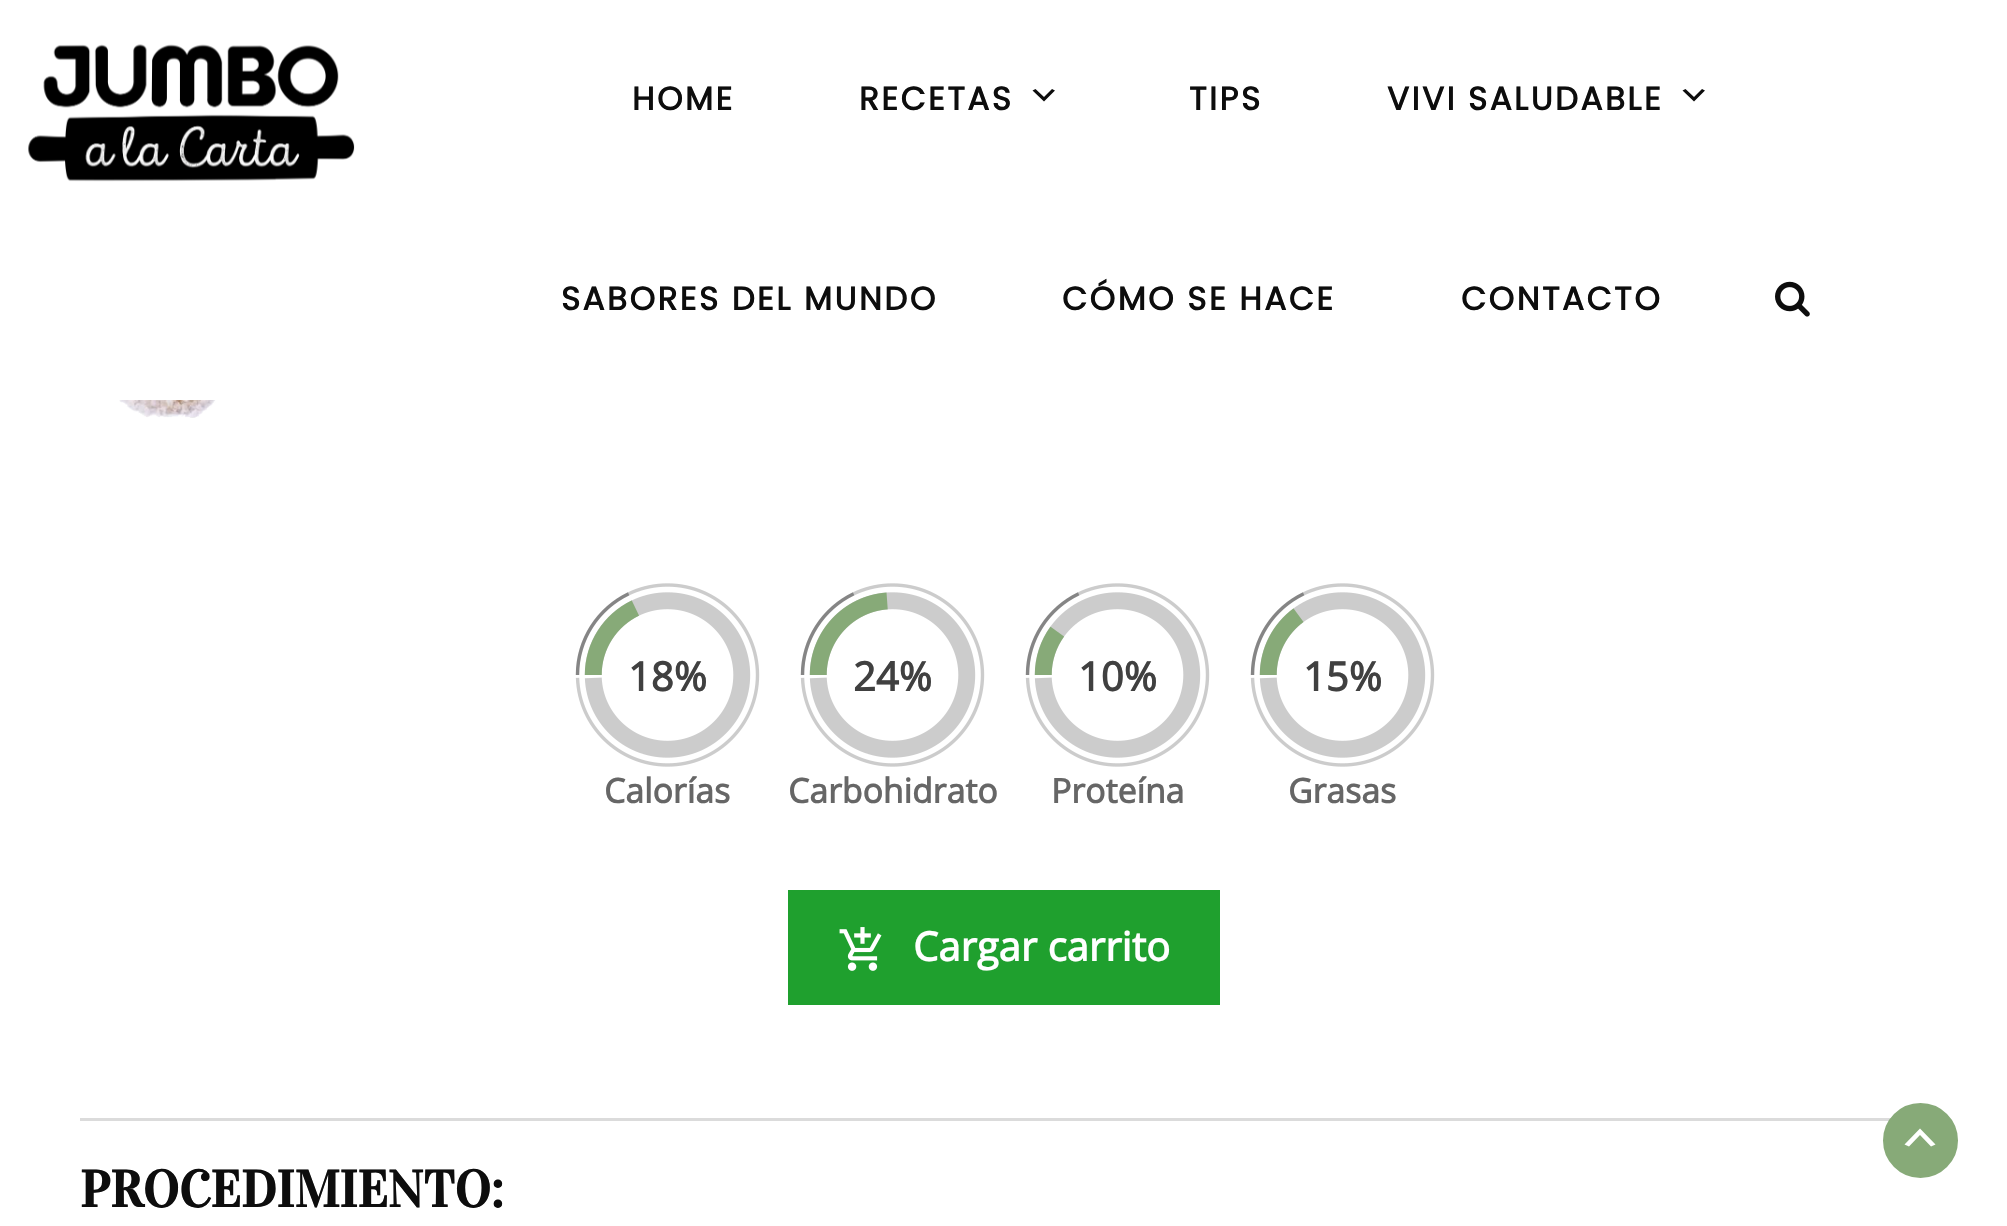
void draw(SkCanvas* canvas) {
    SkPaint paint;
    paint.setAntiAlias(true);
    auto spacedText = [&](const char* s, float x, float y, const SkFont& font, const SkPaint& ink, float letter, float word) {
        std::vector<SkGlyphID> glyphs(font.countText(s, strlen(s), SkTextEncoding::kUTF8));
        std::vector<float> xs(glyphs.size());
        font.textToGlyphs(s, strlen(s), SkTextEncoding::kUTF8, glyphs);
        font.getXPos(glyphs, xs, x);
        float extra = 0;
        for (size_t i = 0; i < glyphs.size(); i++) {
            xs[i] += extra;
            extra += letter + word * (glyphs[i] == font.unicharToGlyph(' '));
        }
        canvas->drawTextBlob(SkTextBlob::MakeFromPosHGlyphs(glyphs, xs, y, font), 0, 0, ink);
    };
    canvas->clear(0xFFFFFFFF);
    canvas->drawImageRect(SkImages::DeferredFromEncodedData(SkData::MakeFromFileName("img1.png")), SkRect::MakeXYWH(28, 44, 327, 138), SkSamplingOptions());
    SkFont font1(fontMgr->matchFamilyStyle("Poppins", SkFontStyle::Bold()), 32.5f);
    font1.setSubpixel(true);
    paint.setColor(0xFF0D0D0D);
    spacedText("HOME", 632, 110, font1, paint, 2.5f, 0);
    spacedText("RECETAS", 859, 110, font1, paint, 2.5f, 0);
    canvas->drawPath(SkPathBuilder().moveTo(1035.5f, 89).lineTo(1044, 97).lineTo(1052, 89).lineTo(1055, 90.5f).lineTo(1044, 101.5f).lineTo(1032.5f, 90.5f).close().detach(), paint);
    spacedText("TIPS", 1189, 110, font1, paint, 2.5f, 0);
    spacedText("VIVI SALUDABLE", 1387, 110, font1, paint, 2.5f, 0);
    canvas->drawPath(SkPathBuilder().moveTo(1685.5f, 89).lineTo(1694, 97).lineTo(1702, 89).lineTo(1705, 90.5f).lineTo(1694, 101.5f).lineTo(1682.5f, 90.5f).close().detach(), paint);
    spacedText("SABORES DEL MUNDO", 561, 310, font1, paint, 2.5f, 0);
    spacedText("CÓMO SE HACE", 1062, 310, font1, paint, 2.5f, 0);
    spacedText("CONTACTO", 1461, 310, font1, paint, 2.5f, 0);
    canvas->drawImageRect(SkImages::DeferredFromEncodedData(SkData::MakeFromFileName("img2.png")), SkRect::MakeXYWH(1775, 281, 35, 36), SkSamplingOptions());
    canvas->drawImageRect(SkImages::DeferredFromEncodedData(SkData::MakeFromFileName("img3.png")), SkRect::MakeXYWH(119, 400, 97, 18), SkSamplingOptions());
    canvas->drawImageRect(SkImages::DeferredFromEncodedData(SkData::MakeFromFileName("img4.png")), SkRect::MakeXYWH(575, 583, 185, 184), SkSamplingOptions());
    SkFont font2(fontMgr->matchFamilyStyle("Open Sans", SkFontStyle::Bold()), 40);
    font2.setSubpixel(true);
    paint.setColor(0xFF404040);
    canvas->drawString("18%", 628, 691, font2, paint);
    SkFont font3(fontMgr->matchFamilyStyle("Open Sans", SkFontStyle::Bold()), 33.75f);
    font3.setSubpixel(true);
    paint.setColor(0xFF666666);
    canvas->drawString("Calorías", 604, 803, font3, paint);
    canvas->drawImageRect(SkImages::DeferredFromEncodedData(SkData::MakeFromFileName("img5.png")), SkRect::MakeXYWH(800, 583, 185, 184), SkSamplingOptions());
    paint.setColor(0xFF404040);
    canvas->drawString("24%", 853, 691, font2, paint);
    paint.setColor(0xFF666666);
    canvas->drawString("Carbohidrato", 788, 803, font3, paint);
    canvas->drawImageRect(SkImages::DeferredFromEncodedData(SkData::MakeFromFileName("img6.png")), SkRect::MakeXYWH(1025, 583, 185, 184), SkSamplingOptions());
    paint.setColor(0xFF404040);
    canvas->drawString("10%", 1078, 691, font2, paint);
    paint.setColor(0xFF666666);
    canvas->drawString("Proteína", 1051, 803, font3, paint);
    canvas->drawImageRect(SkImages::DeferredFromEncodedData(SkData::MakeFromFileName("img7.png")), SkRect::MakeXYWH(1250, 583, 185, 184), SkSamplingOptions());
    paint.setColor(0xFF404040);
    canvas->drawString("15%", 1303, 691, font2, paint);
    paint.setColor(0xFF666666);
    canvas->drawString("Grasas", 1288, 803, font3, paint);
    paint.setColor(0xFF1FA02E);
    canvas->drawRect(SkRect::MakeXYWH(788, 890, 432, 115), paint);
    canvas->drawImageRect(SkImages::DeferredFromEncodedData(SkData::MakeFromFileName("img8.png")), SkRect::MakeXYWH(839, 927, 43, 44), SkSamplingOptions());
    paint.setColor(0xFFFFFFFF);
    canvas->drawString("Cargar carrito", 913, 961, font2, paint);
    paint.setColor(0xFFDBDBDB);
    canvas->drawRect(SkRect::MakeXYWH(80, 1118, 1811, 3), paint);
    SkFont font4(fontMgr->matchFamilyStyle("Vidaloka", SkFontStyle::Bold()), 51.5f);
    font4.setSubpixel(true);
    paint.setColor(0xFF0D0D0D);
    canvas->drawString("PROCEDIMIENTO:", 80, 1207, font4, paint);
    paint.setColor(0xFF87AA78);
    canvas->drawCircle(1920.5f, 1140.5f, 35, paint);
    paint.setStyle(SkPaint::kStroke_Style);
    paint.setStrokeWidth(5);
    canvas->drawCircle(1920.5f, 1140.5f, 35, paint);
    paint.setStyle(SkPaint::kFill_Style);
    paint.setColor(0xFFFFFFFF);
    canvas->drawPath(SkPathBuilder().moveTo(1931, 1146.5f).lineTo(1920, 1135).lineTo(1909, 1146.5f).lineTo(1904.5f, 1144.5f).lineTo(1920, 1128.5f).lineTo(1935.5f, 1144.5f).close().detach(), paint);
}
